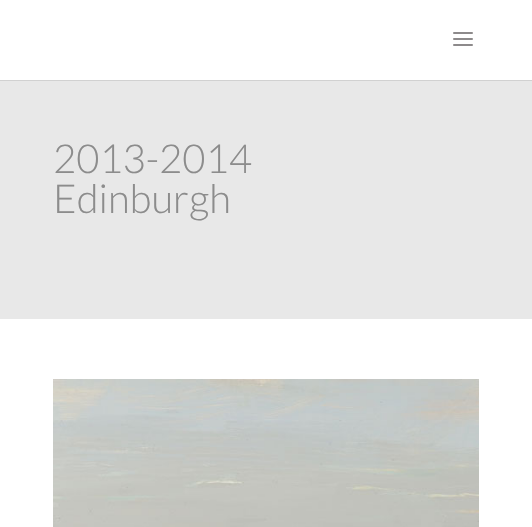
void draw(SkCanvas* canvas) {
    SkPaint paint;
    paint.setAntiAlias(true);
    canvas->clear(0xFFFFFFFF);
    paint.setColor(0xFFD1D1D1);
    canvas->drawRect(SkRect::MakeXYWH(0, 80, 532, 1), paint);
    canvas->drawImageRect(SkImages::DeferredFromEncodedData(SkData::MakeFromFileName("img1.png")), SkRect::MakeXYWH(453, 32, 20, 14), SkSamplingOptions());
    paint.setColor(0xFFE8E8E8);
    canvas->drawRect(SkRect::MakeXYWH(0, 81, 532, 238), paint);
    SkFont font1(fontMgr->matchFamilyStyle("Lato", SkFontStyle(300, SkFontStyle::kNormal_Width, SkFontStyle::kUpright_Slant)), 40);
    font1.setSubpixel(true);
    paint.setColor(0xFF8C8C8C);
    canvas->drawString("2013-2014", 53, 173, font1, paint);
    canvas->drawString("Edinburgh", 53, 213, font1, paint);
    canvas->drawImageRect(SkImages::DeferredFromEncodedData(SkData::MakeFromFileName("img2.png")), SkRect::MakeXYWH(53, 379, 426, 148), SkSamplingOptions());
}
